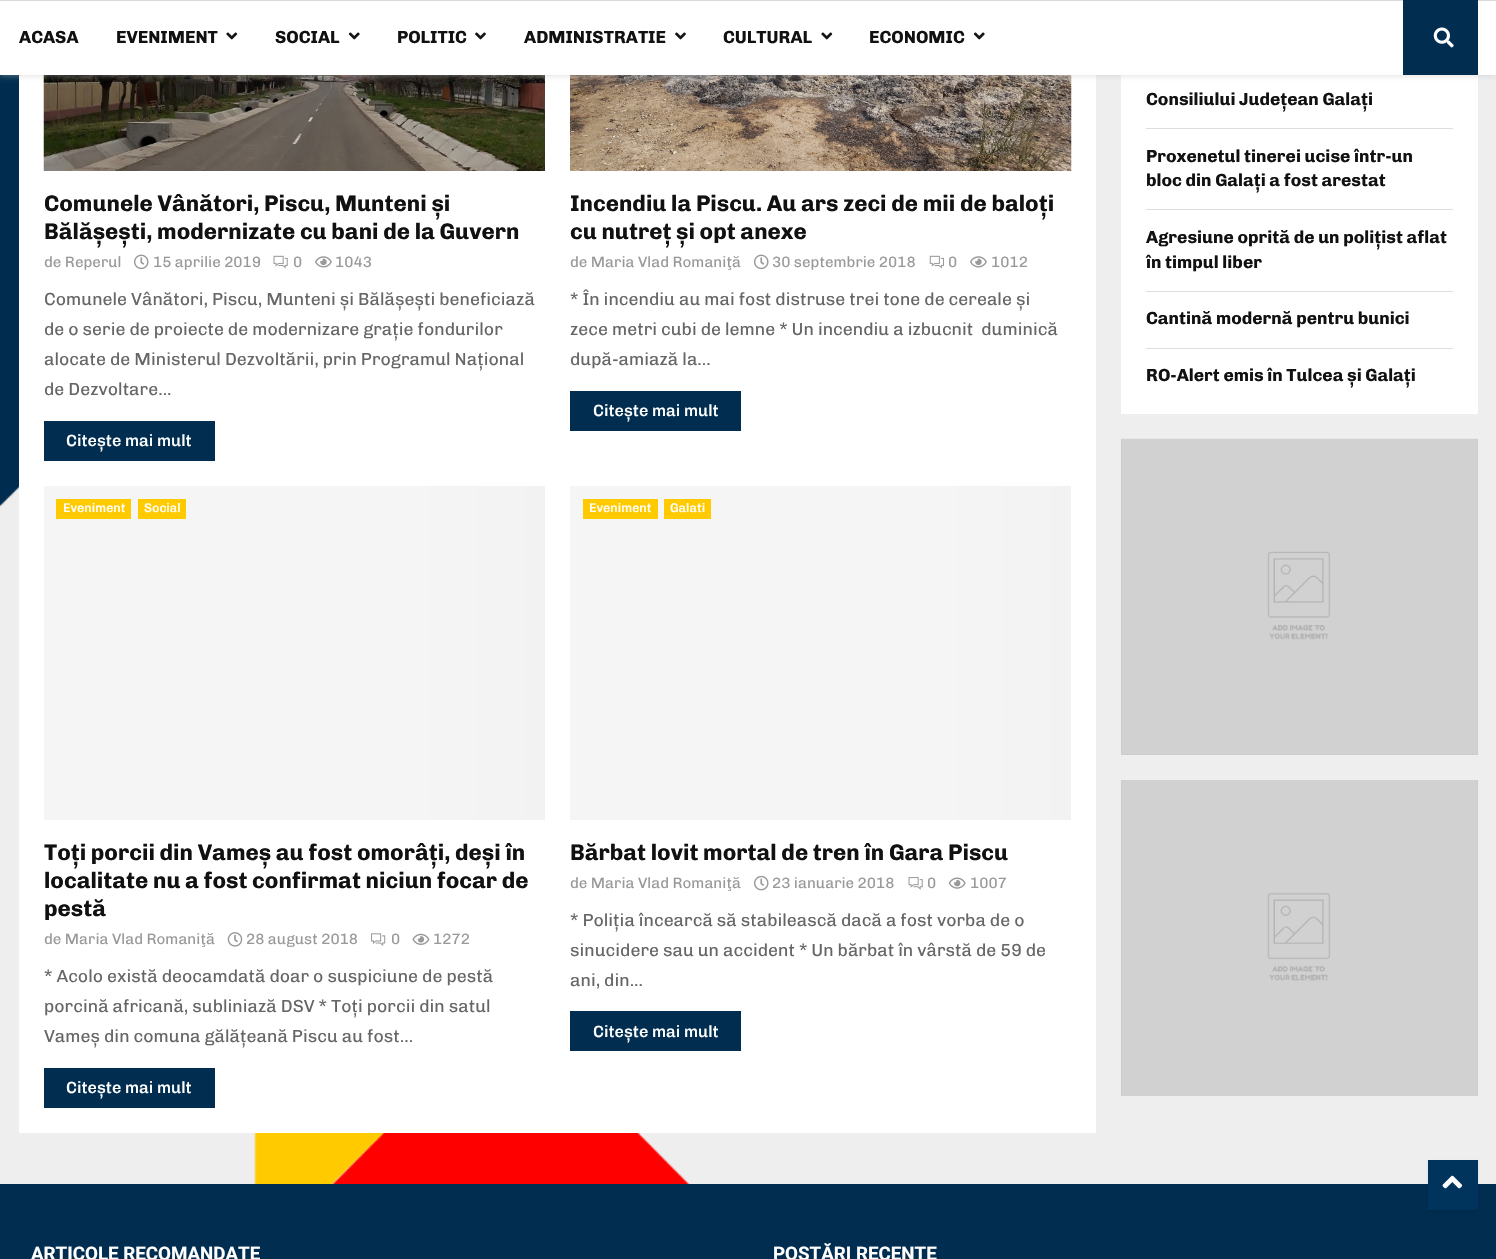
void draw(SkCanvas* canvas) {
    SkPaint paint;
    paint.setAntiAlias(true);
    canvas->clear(0xFFEEEEEE);
    canvas->drawImageRect(SkImages::DeferredFromEncodedData(SkData::MakeFromFileName("img1.png")), SkRect::MakeXYWH(0, 75, 690, 1109), SkSamplingOptions());
    paint.setColor(0xFFFFFFFF);
    canvas->drawRect(SkRect::MakeXYWH(19, 75, 1077, 1058), paint);
    canvas->drawImageRect(SkImages::DeferredFromEncodedData(SkData::MakeFromFileName("img6.png")), SkRect::MakeXYWH(43, 75, 502, 96), SkSamplingOptions());
    canvas->drawImageRect(SkImages::DeferredFromEncodedData(SkData::MakeFromFileName("img10.png")), SkRect::MakeXYWH(570, 75, 502, 96), SkSamplingOptions());
    canvas->drawRect(SkRect::MakeXYWH(1121, 75, 357, 339), paint);
    paint.setColor(0x75BEBEBE);
    paint.setMaskFilter(SkMaskFilter::MakeBlur(kNormal_SkBlurStyle, 3));
    canvas->drawRect(SkRect::MakeXYWH(0, 1, 1496, 75), paint);
    paint.setMaskFilter(nullptr);
    paint.setColor(0xFFFFFFFF);
    canvas->drawRect(SkRect::MakeXYWH(0, 1, 1496, 74), paint);
    paint.setColor(0xFFD9D9D9);
    canvas->drawRect(SkRect::MakeXYWH(0, 0, 1496, 1), paint);
    SkFont font1(fontMgr->matchFamilyStyle("Chivo", SkFontStyle::Bold()), 17.5f);
    font1.setSubpixel(true);
    paint.setColor(0xFF111111);
    canvas->drawString("ACASA", 19, 43, font1, paint);
    canvas->drawString("EVENIMENT", 116, 43, font1, paint);
    canvas->drawImageRect(SkImages::DeferredFromEncodedData(SkData::MakeFromFileName("img2.png")), SkRect::MakeXYWH(226, 32, 12, 8), SkSamplingOptions());
    canvas->drawString("SOCIAL", 275, 43, font1, paint);
    canvas->drawImageRect(SkImages::DeferredFromEncodedData(SkData::MakeFromFileName("img3.png")), SkRect::MakeXYWH(348, 32, 12, 8), SkSamplingOptions());
    canvas->drawString("POLITIC", 397, 43, font1, paint);
    canvas->drawImageRect(SkImages::DeferredFromEncodedData(SkData::MakeFromFileName("img4.png")), SkRect::MakeXYWH(475, 32, 11, 8), SkSamplingOptions());
    canvas->drawString("ADMINISTRATIE", 524, 43, font1, paint);
    canvas->drawImageRect(SkImages::DeferredFromEncodedData(SkData::MakeFromFileName("img4.png")), SkRect::MakeXYWH(675, 32, 11, 8), SkSamplingOptions());
    canvas->drawString("CULTURAL", 723, 43, font1, paint);
    canvas->drawImageRect(SkImages::DeferredFromEncodedData(SkData::MakeFromFileName("img2.png")), SkRect::MakeXYWH(821, 32, 12, 8), SkSamplingOptions());
    canvas->drawString("ECONOMIC", 869, 43, font1, paint);
    canvas->drawImageRect(SkImages::DeferredFromEncodedData(SkData::MakeFromFileName("img3.png")), SkRect::MakeXYWH(973, 32, 12, 8), SkSamplingOptions());
    paint.setColor(0xFF002D50);
    canvas->drawRect(SkRect::MakeXYWH(1403, 0, 75, 75), paint);
    canvas->drawImageRect(SkImages::DeferredFromEncodedData(SkData::MakeFromFileName("img5.png")), SkRect::MakeXYWH(1433, 27, 21, 21), SkSamplingOptions());
    SkFont font2(fontMgr->matchFamilyStyle("Chivo", SkFontStyle::Bold()), 22.5f);
    font2.setSubpixel(true);
    paint.setColor(0xFF111111);
    canvas->drawString("Comunele Vânători, Piscu, Munteni și", 44, 211, font2, paint);
    canvas->drawString("Bălășești, modernizate cu bani de la Guvern", 44, 239, font2, paint);
    SkFont font3(fontMgr->matchFamilyStyle("Chivo", SkFontStyle::Normal()), 15);
    font3.setSubpixel(true);
    paint.setColor(0xFF999999);
    canvas->drawString("de Reperul", 44, 267, font3, paint);
    canvas->drawImageRect(SkImages::DeferredFromEncodedData(SkData::MakeFromFileName("img7.png")), SkRect::MakeXYWH(134, 254, 15, 16), SkSamplingOptions());
    canvas->drawString("15 aprilie 2019", 153, 267, font3, paint);
    canvas->drawImageRect(SkImages::DeferredFromEncodedData(SkData::MakeFromFileName("img8.png")), SkRect::MakeXYWH(273, 255, 15, 14), SkSamplingOptions());
    canvas->drawString("0", 293, 267, font3, paint);
    canvas->drawImageRect(SkImages::DeferredFromEncodedData(SkData::MakeFromFileName("img9.png")), SkRect::MakeXYWH(315, 256, 17, 12), SkSamplingOptions());
    canvas->drawString("1043", 335, 267, font3, paint);
    SkFont font4(fontMgr->matchFamilyStyle("Chivo", SkFontStyle::Normal()), 17.5f);
    font4.setSubpixel(true);
    paint.setColor(0xFF666666);
    canvas->drawString("Comunele Vânători, Piscu, Munteni și Bălășești beneficiază", 44, 305, font4, paint);
    canvas->drawString("de o serie de proiecte de modernizare grație fondurilor", 44, 335, font4, paint);
    canvas->drawString("alocate de Ministerul Dezvoltării, prin Programul Național", 44, 365, font4, paint);
    canvas->drawString("de Dezvoltare...", 44, 395, font4, paint);
    paint.setColor(0xFF002D50);
    canvas->drawRect(SkRect::MakeXYWH(44, 421, 171, 40), paint);
    SkFont font5(fontMgr->matchFamilyStyle("Chivo", SkFontStyle(500, SkFontStyle::kNormal_Width, SkFontStyle::kUpright_Slant)), 16.25f);
    font5.setSubpixel(true);
    paint.setColor(0xFFFFFFFF);
    canvas->drawString("Citește mai mult", 66, 446, font5, paint);
    paint.setColor(0xFF111111);
    canvas->drawString("Incendiu la Piscu. Au ars zeci de mii de baloți", 570, 211, font2, paint);
    canvas->drawString("cu nutreț și opt anexe", 570, 239, font2, paint);
    paint.setColor(0xFF999999);
    canvas->drawString("de Maria Vlad Romaniţă", 570, 267, font3, paint);
    canvas->drawImageRect(SkImages::DeferredFromEncodedData(SkData::MakeFromFileName("img7.png")), SkRect::MakeXYWH(754, 254, 15, 16), SkSamplingOptions());
    canvas->drawString("30 septembrie 2018", 772, 267, font3, paint);
    canvas->drawImageRect(SkImages::DeferredFromEncodedData(SkData::MakeFromFileName("img11.png")), SkRect::MakeXYWH(929, 255, 15, 14), SkSamplingOptions());
    canvas->drawString("0", 948, 267, font3, paint);
    canvas->drawImageRect(SkImages::DeferredFromEncodedData(SkData::MakeFromFileName("img9.png")), SkRect::MakeXYWH(970, 256, 17, 12), SkSamplingOptions());
    canvas->drawString("1012", 991, 267, font3, paint);
    paint.setColor(0xFF666666);
    canvas->drawString("* În incendiu au mai fost distruse trei tone de cereale și", 570, 305, font4, paint);
    canvas->drawString("zece metri cubi de lemne * Un incendiu a izbucnit  duminică", 570, 335, font4, paint);
    canvas->drawString("după-amiază la...", 570, 365, font4, paint);
    paint.setColor(0xFF002D50);
    canvas->drawRect(SkRect::MakeXYWH(570, 391, 171, 40), paint);
    paint.setColor(0xFFFFFFFF);
    canvas->drawString("Citește mai mult", 593, 416, font5, paint);
    {
        const SkColor colors[] = {0xFFF5F5F5, 0xFFEFEFEF, 0xFFF5F5F5, 0xFFF5F5F5};
        const float stops[] = {0, 0.15f, 0.4f, 1};
        const SkPoint ends[] = {{857, 653}, {-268, 653}};
        paint.setShader(SkGradientShader::MakeLinear(ends, colors, stops, 4, SkTileMode::kClamp));
        paint.setAlpha(255);
    }
    canvas->drawRect(SkRect::MakeXYWH(44, 486, 501, 334), paint);
    paint.setShader(nullptr);
    paint.setColor(0xFFFFCB00);
    canvas->drawRect(SkRect::MakeXYWH(56, 499, 75, 20), paint);
    SkFont font6(fontMgr->matchFamilyStyle("Chivo", SkFontStyle(500, SkFontStyle::kNormal_Width, SkFontStyle::kUpright_Slant)), 12.5f);
    font6.setSubpixel(true);
    paint.setColor(0xFFFFFFFF);
    canvas->drawString("Eveniment", 63, 512, font6, paint);
    paint.setColor(0xFFFFCB00);
    canvas->drawRect(SkRect::MakeXYWH(138, 499, 48, 20), paint);
    paint.setColor(0xFFFFFFFF);
    canvas->drawString("Social", 144, 512, font6, paint);
    paint.setColor(0xFF111111);
    canvas->drawString("Toți porcii din Vameș au fost omorâți, deși în", 44, 860, font2, paint);
    canvas->drawString("localitate nu a fost confirmat niciun focar de", 44, 888, font2, paint);
    canvas->drawString("pestă", 44, 916, font2, paint);
    paint.setColor(0xFF999999);
    canvas->drawString("de Maria Vlad Romaniţă", 44, 944, font3, paint);
    canvas->drawImageRect(SkImages::DeferredFromEncodedData(SkData::MakeFromFileName("img12.png")), SkRect::MakeXYWH(227, 932, 16, 15), SkSamplingOptions());
    canvas->drawString("28 august 2018", 246, 944, font3, paint);
    canvas->drawImageRect(SkImages::DeferredFromEncodedData(SkData::MakeFromFileName("img13.png")), SkRect::MakeXYWH(371, 933, 15, 13), SkSamplingOptions());
    canvas->drawString("0", 391, 944, font3, paint);
    canvas->drawImageRect(SkImages::DeferredFromEncodedData(SkData::MakeFromFileName("img14.png")), SkRect::MakeXYWH(412, 933, 18, 12), SkSamplingOptions());
    canvas->drawString("1272", 433, 944, font3, paint);
    paint.setColor(0xFF666666);
    canvas->drawString("* Acolo există deocamdată doar o suspiciune de pestă", 44, 982, font4, paint);
    canvas->drawString("porcină africană, subliniază DSV * Toți porcii din satul", 44, 1012, font4, paint);
    canvas->drawString("Vameș din comuna gălățeană Piscu au fost...", 44, 1042, font4, paint);
    paint.setColor(0xFF002D50);
    canvas->drawRect(SkRect::MakeXYWH(44, 1068, 171, 40), paint);
    paint.setColor(0xFFFFFFFF);
    canvas->drawString("Citește mai mult", 66, 1093, font5, paint);
    {
        const SkColor colors[] = {0xFFF5F5F5, 0xFFEFEFEF, 0xFFF5F5F5, 0xFFF5F5F5};
        const float stops[] = {0, 0.15f, 0.4f, 1};
        const SkPoint ends[] = {{1383, 653}, {258, 653}};
        paint.setShader(SkGradientShader::MakeLinear(ends, colors, stops, 4, SkTileMode::kClamp));
        paint.setAlpha(255);
    }
    canvas->drawRect(SkRect::MakeXYWH(570, 486, 501, 334), paint);
    paint.setShader(nullptr);
    paint.setColor(0xFFFFCB00);
    canvas->drawRect(SkRect::MakeXYWH(583, 499, 75, 20), paint);
    paint.setColor(0xFFFFFFFF);
    canvas->drawString("Eveniment", 589, 512, font6, paint);
    paint.setColor(0xFFFFCB00);
    canvas->drawRect(SkRect::MakeXYWH(664, 499, 47, 20), paint);
    paint.setColor(0xFFFFFFFF);
    canvas->drawString("Galati", 670, 512, font6, paint);
    paint.setColor(0xFF111111);
    canvas->drawString("Bărbat lovit mortal de tren în Gara Piscu", 570, 860, font2, paint);
    paint.setColor(0xFF999999);
    canvas->drawString("de Maria Vlad Romaniţă", 570, 888, font3, paint);
    canvas->drawImageRect(SkImages::DeferredFromEncodedData(SkData::MakeFromFileName("img15.png")), SkRect::MakeXYWH(754, 875, 15, 16), SkSamplingOptions());
    canvas->drawString("23 ianuarie 2018", 772, 888, font3, paint);
    canvas->drawImageRect(SkImages::DeferredFromEncodedData(SkData::MakeFromFileName("img16.png")), SkRect::MakeXYWH(908, 877, 15, 13), SkSamplingOptions());
    canvas->drawString("0", 927, 888, font3, paint);
    canvas->drawImageRect(SkImages::DeferredFromEncodedData(SkData::MakeFromFileName("img17.png")), SkRect::MakeXYWH(948, 877, 18, 12), SkSamplingOptions());
    canvas->drawString("1007", 970, 888, font3, paint);
    paint.setColor(0xFF666666);
    canvas->drawString("* Poliția încearcă să stabilească dacă a fost vorba de o", 570, 926, font4, paint);
    canvas->drawString("sinucidere sau un accident * Un bărbat în vârstă de 59 de", 570, 956, font4, paint);
    canvas->drawString("ani, din...", 570, 986, font4, paint);
    paint.setColor(0xFF002D50);
    canvas->drawRect(SkRect::MakeXYWH(570, 1011, 171, 40), paint);
    paint.setColor(0xFFFFFFFF);
    canvas->drawString("Citește mai mult", 593, 1037, font5, paint);
    paint.setColor(0xFFDEDEDE);
    canvas->drawRect(SkRect::MakeXYWH(1146, 128, 307, 1), paint);
    paint.setColor(0xFF111111);
    canvas->drawString("Consiliului Județean Galați", 1146, 105, font1, paint);
    paint.setColor(0xFFDEDEDE);
    canvas->drawRect(SkRect::MakeXYWH(1146, 209, 307, 1), paint);
    paint.setColor(0xFF111111);
    canvas->drawString("Proxenetul tinerei ucise într-un", 1146, 162, font1, paint);
    canvas->drawString("bloc din Galați a fost arestat", 1146, 186, font1, paint);
    paint.setColor(0xFFDEDEDE);
    canvas->drawRect(SkRect::MakeXYWH(1146, 291, 307, 1), paint);
    paint.setColor(0xFF111111);
    canvas->drawString("Agresiune oprită de un polițist aflat", 1146, 243, font1, paint);
    canvas->drawString("în timpul liber", 1146, 268, font1, paint);
    paint.setColor(0xFFDEDEDE);
    canvas->drawRect(SkRect::MakeXYWH(1146, 348, 307, 1), paint);
    paint.setColor(0xFF111111);
    canvas->drawString("Cantină modernă pentru bunici", 1146, 324, font1, paint);
    canvas->drawString("RO-Alert emis în Tulcea și Galați", 1146, 381, font1, paint);
    paint.setColor(0xFFCCCCCC);
    canvas->drawRect(SkRect::MakeXYWH(1121, 439, 357, 316), paint);
    canvas->drawImageRect(SkImages::DeferredFromEncodedData(SkData::MakeFromFileName("img18.png")), SkRect::MakeXYWH(1122, 438, 355, 316), SkSamplingOptions());
    canvas->drawRect(SkRect::MakeXYWH(1121, 780, 357, 316), paint);
    canvas->drawImageRect(SkImages::DeferredFromEncodedData(SkData::MakeFromFileName("img19.png")), SkRect::MakeXYWH(1122, 780, 355, 316), SkSamplingOptions());
    paint.setColor(0xFF002D50);
    canvas->drawRect(SkRect::MakeXYWH(0, 1184, 1496, 75), paint);
    SkFont font7(fontMgr->matchFamilyStyle("Roboto", SkFontStyle::Bold()), 18.75f);
    font7.setSubpixel(true);
    paint.setColor(0xFFFFFFFF);
    canvas->drawString("ARTICOLE RECOMANDATE", 31, 1260, font7, paint);
    canvas->drawString("POSTĂRI RECENTE", 773, 1260, font7, paint);
    paint.setColor(0x1A000000);
    paint.setMaskFilter(SkMaskFilter::MakeBlur(kNormal_SkBlurStyle, 1));
    canvas->drawRect(SkRect::MakeXYWH(1428, 1161, 50, 50), paint);
    paint.setMaskFilter(nullptr);
    paint.setColor(0xFF01345C);
    canvas->drawRect(SkRect::MakeXYWH(1428, 1160, 50, 50), paint);
    canvas->drawImageRect(SkImages::DeferredFromEncodedData(SkData::MakeFromFileName("img20.png")), SkRect::MakeXYWH(1442, 1175, 21, 14), SkSamplingOptions());
}
